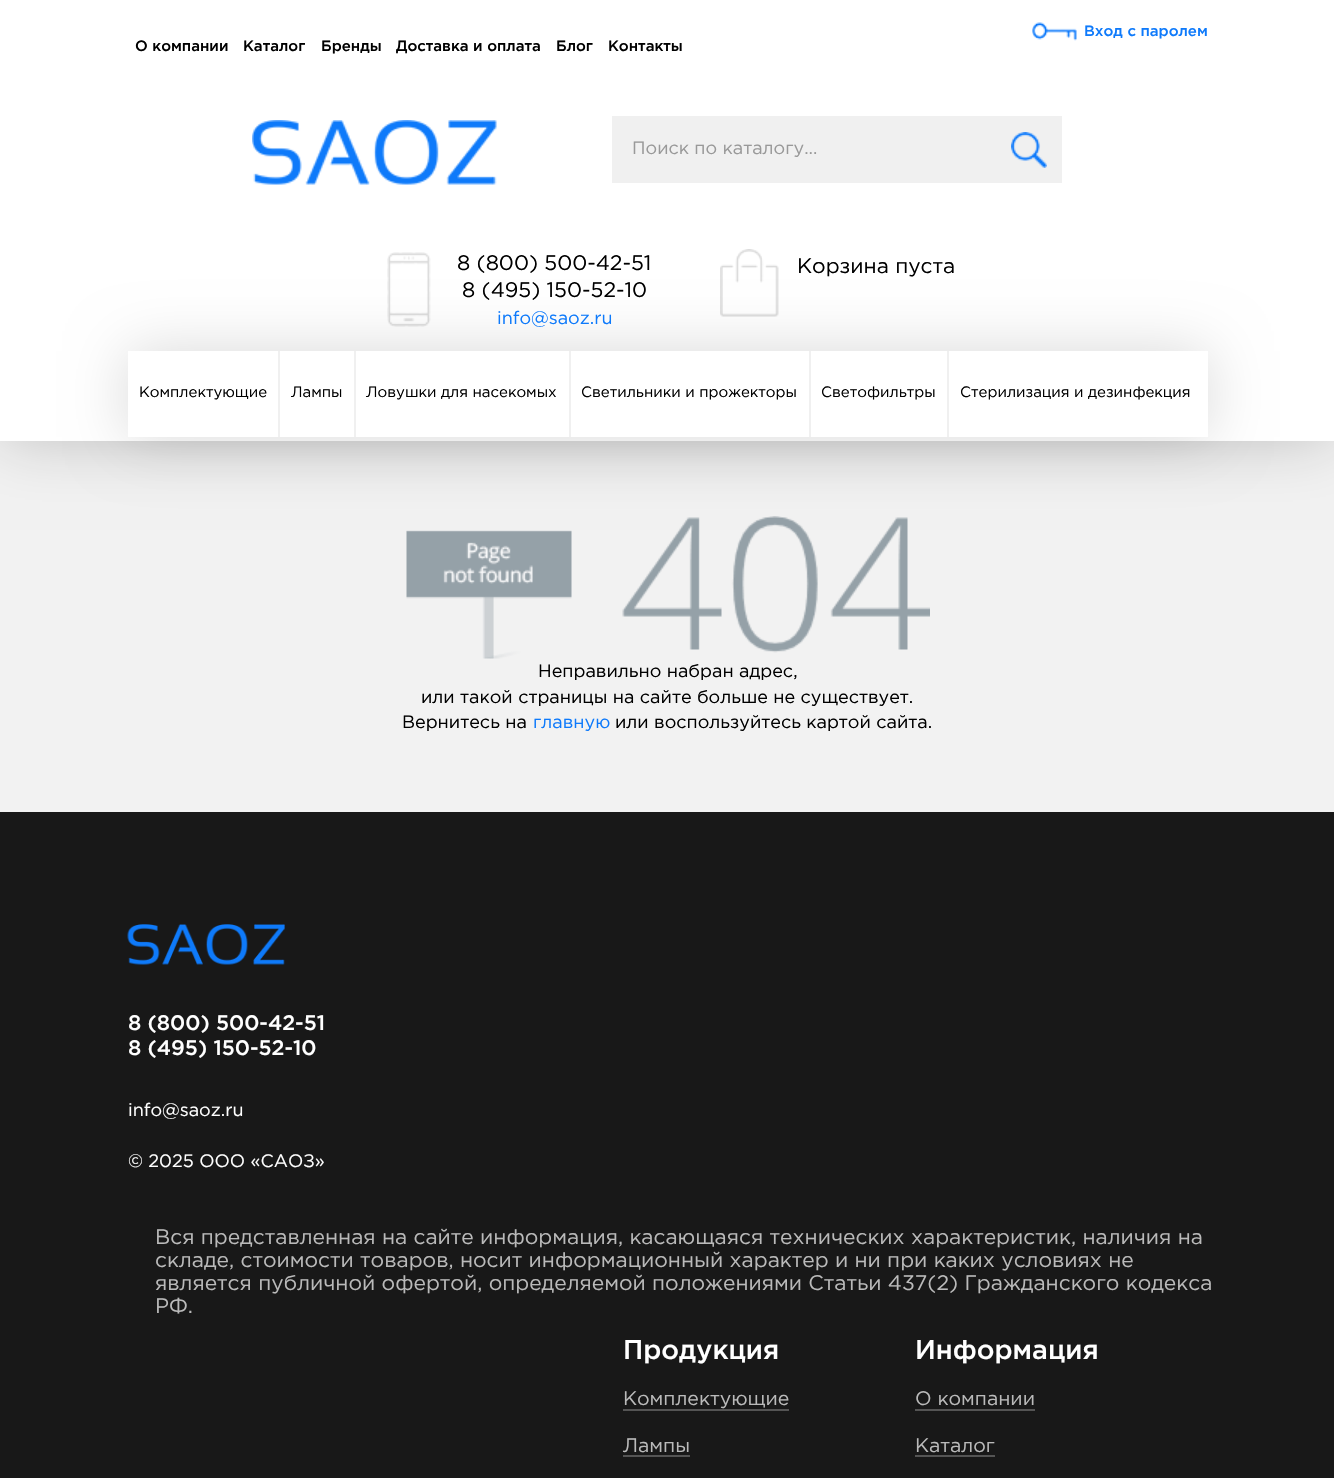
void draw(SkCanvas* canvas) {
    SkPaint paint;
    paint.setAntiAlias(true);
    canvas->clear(0xFFF2F2F2);
    canvas->drawImageRect(SkImages::DeferredFromEncodedData(SkData::MakeFromFileName("img6.png")), SkRect::MakeXYWH(406, 516, 524, 143), SkSamplingOptions());
    paint.setColor(0x33000000);
    paint.setMaskFilter(SkMaskFilter::MakeBlur(kNormal_SkBlurStyle, 30));
    canvas->drawRect(SkRect::MakeXYWH(0, 0, 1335, 441), paint);
    paint.setMaskFilter(nullptr);
    paint.setColor(0xFFFFFFFF);
    canvas->drawRect(SkRect::MakeXYWH(0, 0, 1334, 441), paint);
    canvas->drawImageRect(SkImages::DeferredFromEncodedData(SkData::MakeFromFileName("img1.png")), SkRect::MakeXYWH(1032, 22, 45, 19), SkSamplingOptions());
    SkFont font1(fontMgr->matchFamilyStyle("Gotham", SkFontStyle(500, SkFontStyle::kNormal_Width, SkFontStyle::kUpright_Slant)), 15);
    font1.setSubpixel(true);
    paint.setColor(0xFF0E7AFB);
    canvas->drawString("Вход с паролем", 1084, 36, font1, paint);
    paint.setColor(0xFF000000);
    canvas->drawString("О компании", 135, 51, font1, paint);
    canvas->drawString("Каталог", 243, 51, font1, paint);
    canvas->drawString("Бренды", 321, 51, font1, paint);
    canvas->drawString("Доставка и оплата", 396, 51, font1, paint);
    canvas->drawString("Блог", 556, 51, font1, paint);
    canvas->drawString("Контакты", 608, 51, font1, paint);
    canvas->drawImageRect(SkImages::DeferredFromEncodedData(SkData::MakeFromFileName("img2.png")), SkRect::MakeXYWH(252, 120, 245, 65), SkSamplingOptions());
    paint.setColor(0xFFF0F0F0);
    canvas->drawRect(SkRect::MakeXYWH(612, 116, 450, 67), paint);
    SkFont font2(fontMgr->matchFamilyStyle("Gotham", SkFontStyle::Normal()), 18);
    font2.setSubpixel(true);
    paint.setColor(0xFF999999);
    canvas->drawString("Поиск по каталогу...", 632, 154, font2, paint);
    canvas->drawImageRect(SkImages::DeferredFromEncodedData(SkData::MakeFromFileName("img3.png")), SkRect::MakeXYWH(1011, 132, 36, 36), SkSamplingOptions());
    canvas->save();
    canvas->clipPath(SkPathBuilder(SkPathFillType::kEvenOdd).moveTo(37, 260).lineTo(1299, 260).lineTo(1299, 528).lineTo(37, 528).close().moveTo(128, 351).lineTo(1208, 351).lineTo(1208, 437).lineTo(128, 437).close().detach(), true);
    paint.setColor(0x26000000);
    paint.setMaskFilter(SkMaskFilter::MakeBlur(kNormal_SkBlurStyle, 30));
    canvas->drawRect(SkRect::MakeXYWH(128, 351, 1080, 86), paint);
    paint.setMaskFilter(nullptr);
    canvas->restore();
    canvas->drawImageRect(SkImages::DeferredFromEncodedData(SkData::MakeFromFileName("img4.png")), SkRect::MakeXYWH(387, 252, 44, 75), SkSamplingOptions());
    SkFont font3(fontMgr->matchFamilyStyle("Gotham", SkFontStyle::Normal()), 21);
    font3.setSubpixel(true);
    paint.setColor(0xFF000000);
    canvas->drawString("8 (800) 500-42-51", 457, 270, font3, paint);
    canvas->drawString("8 (495) 150-52-10", 462, 297, font3, paint);
    paint.setColor(0xFF0E7AFB);
    canvas->drawString("info@saoz.ru", 497, 324, font2, paint);
    canvas->drawImageRect(SkImages::DeferredFromEncodedData(SkData::MakeFromFileName("img5.png")), SkRect::MakeXYWH(720, 249, 59, 68), SkSamplingOptions());
    paint.setColor(0xFF000000);
    canvas->drawString("Корзина пуста", 797, 273, font3, paint);
    SkFont font4(fontMgr->matchFamilyStyle("Gotham", SkFontStyle::Normal()), 15);
    font4.setSubpixel(true);
    canvas->drawString("Комплектующие", 139, 397, font4, paint);
    paint.setColor(0xFFF0F0F0);
    canvas->drawRect(SkRect::MakeXYWH(278, 351, 2, 86), paint);
    paint.setColor(0xFF000000);
    canvas->drawString("Лампы", 291, 397, font4, paint);
    paint.setColor(0xFFF0F0F0);
    canvas->drawRect(SkRect::MakeXYWH(354, 351, 2, 86), paint);
    paint.setColor(0xFF000000);
    canvas->drawString("Ловушки для насекомых", 366, 397, font4, paint);
    paint.setColor(0xFFF0F0F0);
    canvas->drawRect(SkRect::MakeXYWH(569, 351, 2, 86), paint);
    paint.setColor(0xFF000000);
    canvas->drawString("Светильники и прожекторы", 581, 397, font4, paint);
    paint.setColor(0xFFF0F0F0);
    canvas->drawRect(SkRect::MakeXYWH(809, 351, 2, 86), paint);
    paint.setColor(0xFF000000);
    canvas->drawString("Светофильтры", 821, 397, font4, paint);
    paint.setColor(0xFFF0F0F0);
    canvas->drawRect(SkRect::MakeXYWH(947, 351, 2, 86), paint);
    paint.setColor(0xFF000000);
    canvas->drawString("Стерилизация и дезинфекция", 960, 397, font4, paint);
    canvas->drawString("Неправильно набран адрес,", 538, 677, font2, paint);
    canvas->drawString("или такой страницы на сайте больше не существует.", 421, 703, font2, paint);
    canvas->drawString("Вернитесь на", 402, 728, font2, paint);
    paint.setColor(0xFF0E7AFB);
    canvas->drawString("главную", 533, 728, font2, paint);
    paint.setColor(0xFF000000);
    canvas->drawString("или воспользуйтесь картой сайта.", 615, 728, font2, paint);
    paint.setColor(0xFF181818);
    canvas->drawRect(SkRect::MakeXYWH(0, 812, 1334, 666), paint);
    canvas->drawImageRect(SkImages::DeferredFromEncodedData(SkData::MakeFromFileName("img7.png")), SkRect::MakeXYWH(127, 924, 158, 41), SkSamplingOptions());
    SkFont font5(fontMgr->matchFamilyStyle("Gotham", SkFontStyle(500, SkFontStyle::kNormal_Width, SkFontStyle::kUpright_Slant)), 21);
    font5.setSubpixel(true);
    paint.setColor(0xFFFFFFFF);
    canvas->drawString("8 (800) 500-42-51", 128, 1030, font5, paint);
    canvas->drawString("8 (495) 150-52-10", 128, 1055, font5, paint);
    canvas->drawString("info@saoz.ru", 128, 1116, font2, paint);
    canvas->drawString("© 2025 ООО «САОЗ»", 128, 1167, font2, paint);
    paint.setColor(0xFFBABABA);
    canvas->drawString("Вся представленная на сайте информация, касающаяся технических характеристик, наличия на", 155, 1244, font3, paint);
    canvas->drawString("складе, стоимости товаров, носит информационный характер и ни при каких условиях не", 155, 1267, font3, paint);
    canvas->drawString("является публичной офертой, определяемой положениями Статьи 437(2) Гражданского кодекса", 155, 1290, font3, paint);
    canvas->drawString("РФ.", 155, 1313, font3, paint);
    SkFont font6(fontMgr->matchFamilyStyle("Gotham", SkFontStyle(500, SkFontStyle::kNormal_Width, SkFontStyle::kUpright_Slant)), 27);
    font6.setSubpixel(true);
    paint.setColor(0xFFFFFFFF);
    canvas->drawString("Продукция", 623, 1359, font6, paint);
    SkFont font7(fontMgr->matchFamilyStyle("Gotham", SkFontStyle::Normal()), 19.5f);
    font7.setSubpixel(true);
    paint.setColor(0xFFBABABA);
    canvas->drawString("Комплектующие", 623, 1405, font7, paint);
    paint.setColor(0xFF545454);
    canvas->drawRect(SkRect::MakeXYWH(623, 1409, 166, 2), paint);
    paint.setColor(0xFFBABABA);
    canvas->drawString("Лампы", 623, 1452, font7, paint);
    paint.setColor(0xFF545454);
    canvas->drawRect(SkRect::MakeXYWH(623, 1455, 67, 2), paint);
    paint.setColor(0xFFFFFFFF);
    canvas->drawString("Информация", 915, 1359, font6, paint);
    paint.setColor(0xFFBABABA);
    canvas->drawString("О компании", 915, 1405, font7, paint);
    paint.setColor(0xFF545454);
    canvas->drawRect(SkRect::MakeXYWH(915, 1409, 120, 2), paint);
    paint.setColor(0xFFBABABA);
    canvas->drawString("Каталог", 915, 1452, font7, paint);
    paint.setColor(0xFF545454);
    canvas->drawRect(SkRect::MakeXYWH(915, 1455, 80, 2), paint);
}
